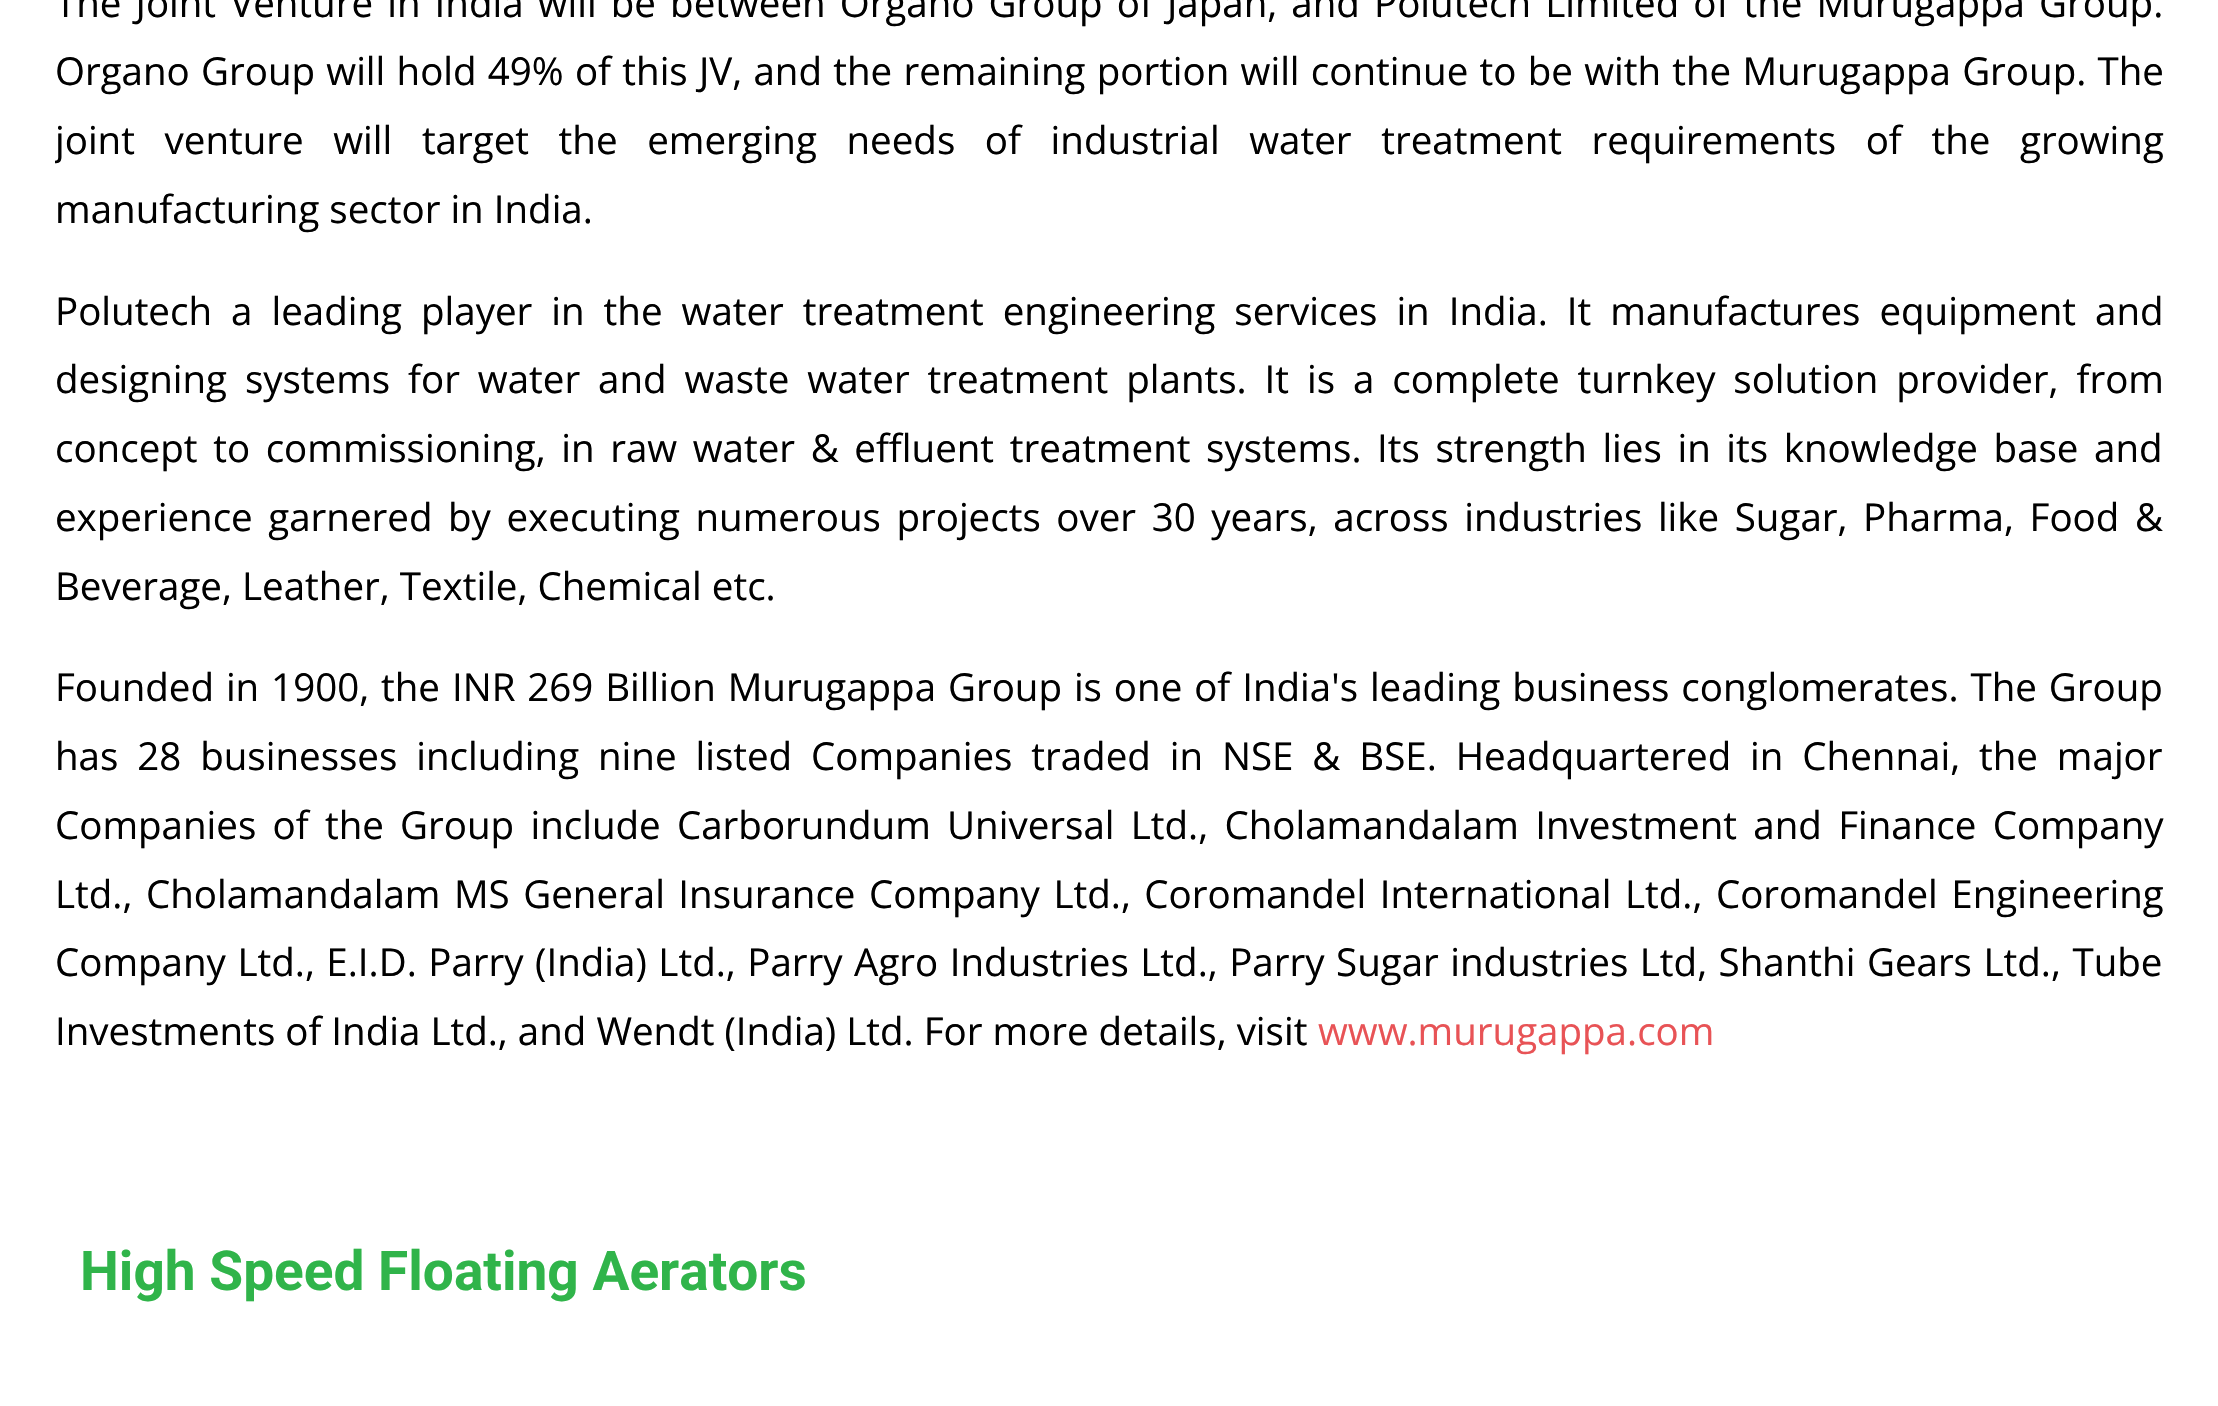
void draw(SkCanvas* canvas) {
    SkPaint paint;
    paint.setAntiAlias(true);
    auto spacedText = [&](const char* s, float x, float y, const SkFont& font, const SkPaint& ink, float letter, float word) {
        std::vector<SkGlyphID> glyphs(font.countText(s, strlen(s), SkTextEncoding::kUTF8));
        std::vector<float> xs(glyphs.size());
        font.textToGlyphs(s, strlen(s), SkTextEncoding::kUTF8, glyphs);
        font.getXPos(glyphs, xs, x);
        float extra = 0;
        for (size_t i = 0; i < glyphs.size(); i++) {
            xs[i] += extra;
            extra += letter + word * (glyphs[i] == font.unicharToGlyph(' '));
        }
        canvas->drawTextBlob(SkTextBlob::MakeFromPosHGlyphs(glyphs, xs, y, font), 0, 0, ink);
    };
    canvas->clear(0xFFFFFFFF);
    SkFont font1(fontMgr->matchFamilyStyle("Open Sans", SkFontStyle::Normal()), 38.5f);
    font1.setSubpixel(true);
    paint.setColor(0xFF000000);
    spacedText("The Joint Venture in India will be between Organo Group of Japan, and Polutech Limited of the Murugappa Group.", 55, 17, font1, paint, 0, 4.1f);
    spacedText("Organo Group will hold 49% of this JV, and the remaining portion will continue to be with the Murugappa Group. The", 55, 85, font1, paint, 0, 1.25f);
    canvas->save();
    canvas->clipRect(SkRect::MakeXYWH(55, 0, 2109, 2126));
    spacedText("joint venture will target the emerging needs of industrial water treatment requirements of the growing", 55, 154, font1, paint, 0, 19.6f);
    canvas->restore();
    canvas->drawString("manufacturing sector in India.", 55, 223, font1, paint);
    spacedText("Polutech a leading player in the water treatment engineering services in India. It manufactures equipment and", 55, 325, font1, paint, 0, 9);
    spacedText("designing systems for water and waste water treatment plants. It is a complete turnkey solution provider, from", 55, 393, font1, paint, 0, 7.9f);
    spacedText("concept to commissioning, in raw water & effluent treatment systems. Its strength lies in its knowledge base and", 55, 462, font1, paint, 0, 5.6f);
    spacedText("experience garnered by executing numerous projects over 30 years, across industries like Sugar, Pharma, Food &", 55, 531, font1, paint, 0, 5.6f);
    canvas->drawString("Beverage, Leather, Textile, Chemical etc.", 55, 600, font1, paint);
    spacedText("Founded in 1900, the INR 269 Billion Murugappa Group is one of India's leading business conglomerates. The Group", 55, 701, font1, paint, 0, 1.9f);
    spacedText("has 28 businesses including nine listed Companies traded in NSE & BSE. Headquartered in Chennai, the major", 55, 770, font1, paint, 0, 8.9f);
    spacedText("Companies of the Group include Carborundum Universal Ltd., Cholamandalam Investment and Finance Company", 55, 839, font1, paint, 0, 6.25f);
    spacedText("Ltd., Cholamandalam MS General Insurance Company Ltd., Coromandel International Ltd., Coromandel Engineering", 55, 908, font1, paint, 0, 3.5f);
    spacedText("Company Ltd., E.I.D. Parry (India) Ltd., Parry Agro Industries Ltd., Parry Sugar industries Ltd, Shanthi Gears Ltd., Tube", 55, 976, font1, paint, 0, 1.5f);
    canvas->drawString("Investments of India Ltd., and Wendt (India) Ltd. For more details, visit", 55, 1045, font1, paint);
    paint.setColor(0xFFE85356);
    canvas->drawString("www.murugappa.com", 1318, 1045, font1, paint);
    SkFont font2(fontMgr->matchFamilyStyle("Roboto", SkFontStyle::Bold()), 55);
    font2.setSubpixel(true);
    paint.setColor(0xFF30B44A);
    canvas->drawString("High Speed Floating Aerators", 80, 1290, font2, paint);
}
